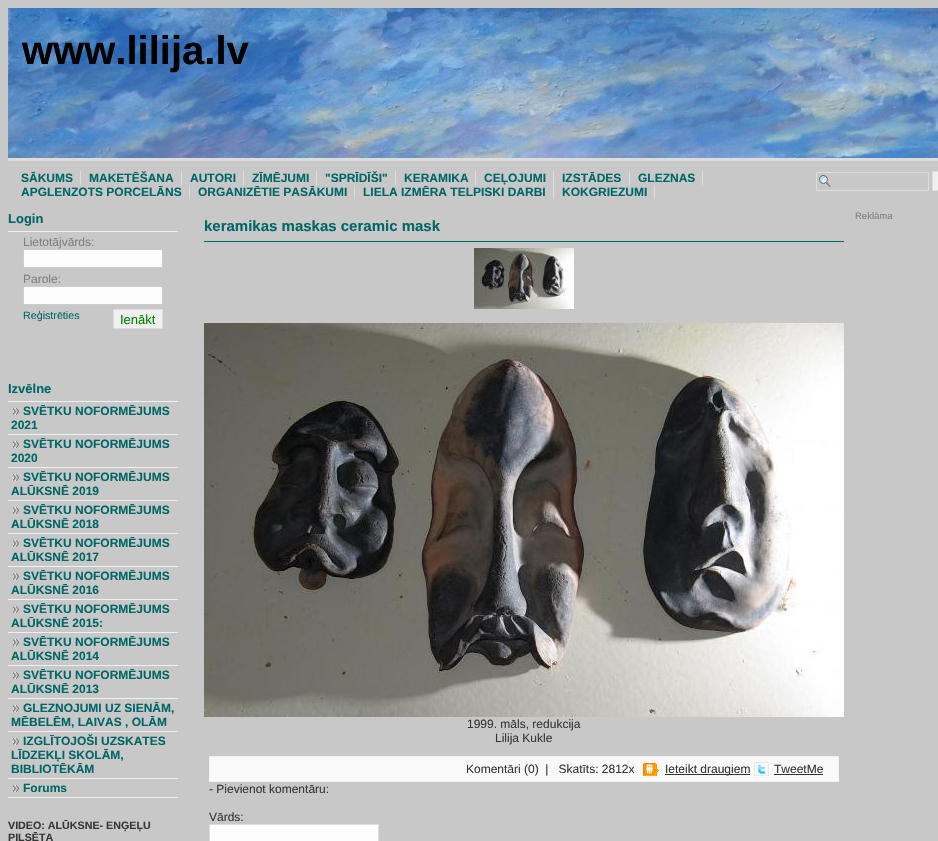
void draw(SkCanvas* canvas) {
    SkPaint paint;
    paint.setAntiAlias(true);
    canvas->clear(0xFFC8C8C8);
    canvas->drawImageRect(SkImages::DeferredFromEncodedData(SkData::MakeFromFileName("img1.png")), SkRect::MakeXYWH(8, 8, 930, 150), SkSamplingOptions());
    SkFont font1(fontMgr->matchFamilyStyle("Liberation Sans", SkFontStyle::Bold()), 40);
    font1.setSubpixel(true);
    paint.setColor(0xFF000000);
    canvas->drawString("www.lilija.lv", 22, 64, font1, paint);
    paint.setColor(0xFFDDDDDD);
    canvas->drawRect(SkRect::MakeXYWH(8, 158, 930, 3), paint);
    SkFont font2(fontMgr->matchFamilyStyle("Liberation Sans", SkFontStyle::Bold()), 12);
    font2.setSubpixel(true);
    paint.setColor(0xFF006666);
    canvas->drawString("SĀKUMS", 21, 182, font2, paint);
    paint.setColor(0xFFDDDDDD);
    canvas->drawRect(SkRect::MakeXYWH(80, 171, 1, 14), paint);
    paint.setColor(0xFF006666);
    canvas->drawString("MAKETĒŠANA", 89, 182, font2, paint);
    paint.setColor(0xFFDDDDDD);
    canvas->drawRect(SkRect::MakeXYWH(181, 171, 1, 14), paint);
    paint.setColor(0xFF006666);
    canvas->drawString("AUTORI", 190, 182, font2, paint);
    paint.setColor(0xFFDDDDDD);
    canvas->drawRect(SkRect::MakeXYWH(243, 171, 1, 14), paint);
    paint.setColor(0xFF006666);
    canvas->drawString("ZĪMĒJUMI", 252, 182, font2, paint);
    paint.setColor(0xFFDDDDDD);
    canvas->drawRect(SkRect::MakeXYWH(316, 171, 1, 14), paint);
    paint.setColor(0xFF006666);
    canvas->drawString("\"SPRĪDĪŠI\"", 325, 182, font2, paint);
    paint.setColor(0xFFDDDDDD);
    canvas->drawRect(SkRect::MakeXYWH(395, 171, 1, 14), paint);
    paint.setColor(0xFF006666);
    canvas->drawString("KERAMIKA", 404, 182, font2, paint);
    paint.setColor(0xFFDDDDDD);
    canvas->drawRect(SkRect::MakeXYWH(475, 171, 1, 14), paint);
    paint.setColor(0xFF006666);
    canvas->drawString("CEĻOJUMI", 484, 182, font2, paint);
    paint.setColor(0xFFDDDDDD);
    canvas->drawRect(SkRect::MakeXYWH(553, 171, 1, 28), paint);
    paint.setColor(0xFF006666);
    canvas->drawString("IZSTĀDES", 562, 182, font2, paint);
    paint.setColor(0xFFDDDDDD);
    canvas->drawRect(SkRect::MakeXYWH(629, 171, 1, 14), paint);
    paint.setColor(0xFF006666);
    canvas->drawString("GLEZNAS", 638, 182, font2, paint);
    paint.setColor(0xFFDDDDDD);
    canvas->drawRect(SkRect::MakeXYWH(702, 171, 1, 14), paint);
    paint.setColor(0xFF006666);
    canvas->drawString("APGLENZOTS PORCELĀNS", 21, 196, font2, paint);
    paint.setColor(0xFFDDDDDD);
    canvas->drawRect(SkRect::MakeXYWH(189, 185, 1, 14), paint);
    paint.setColor(0xFF006666);
    canvas->drawString("ORGANIZĒTIE PASĀKUMI", 198, 196, font2, paint);
    paint.setColor(0xFFDDDDDD);
    canvas->drawRect(SkRect::MakeXYWH(354, 185, 1, 14), paint);
    paint.setColor(0xFF006666);
    canvas->drawString("LIELA IZMĒRA TELPISKI DARBI", 363, 196, font2, paint);
    canvas->drawString("KOKGRIEZUMI", 562, 196, font2, paint);
    paint.setColor(0xFFDDDDDD);
    canvas->drawRect(SkRect::MakeXYWH(654, 185, 1, 14), paint);
    canvas->drawImageRect(SkImages::DeferredFromEncodedData(SkData::MakeFromFileName("img2.png")), SkRect::MakeXYWH(819, 175, 12, 12), SkSamplingOptions());
    paint.setStyle(SkPaint::kStroke_Style);
    paint.setStrokeWidth(1);
    canvas->drawRect(SkRect::MakeXYWH(816.5f, 172.5f, 112, 18), paint);
    paint.setStyle(SkPaint::kFill_Style);
    paint.setColor(0xFFF0F0F0);
    canvas->drawRect(SkRect::MakeXYWH(932.5f, 171.5f, 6, 19), paint);
    paint.setStyle(SkPaint::kStroke_Style);
    paint.setColor(0xFFDDDDDD);
    canvas->drawRect(SkRect::MakeXYWH(932.5f, 171.5f, 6, 19), paint);
    paint.setStyle(SkPaint::kFill_Style);
    paint.setColor(0xFFEFF0F1);
    canvas->drawRect(SkRect::MakeXYWH(8, 231, 170, 1), paint);
    SkFont font3(fontMgr->matchFamilyStyle("Liberation Sans", SkFontStyle::Bold()), 13);
    font3.setSubpixel(true);
    paint.setColor(0xFF006666);
    canvas->drawString("Login", 8, 223, font3, paint);
    SkFont font4(fontMgr->matchFamilyStyle("Liberation Sans", SkFontStyle::Normal()), 12);
    font4.setSubpixel(true);
    paint.setColor(0xFF808080);
    canvas->drawString("Lietotājvārds:", 23, 246, font4, paint);
    paint.setColor(0xFFFDFDFD);
    canvas->drawRect(SkRect::MakeXYWH(23.5f, 249.5f, 139, 18), paint);
    paint.setStyle(SkPaint::kStroke_Style);
    paint.setColor(0xFFCCCCCC);
    canvas->drawRect(SkRect::MakeXYWH(23.5f, 249.5f, 139, 18), paint);
    paint.setStyle(SkPaint::kFill_Style);
    paint.setColor(0xFF808080);
    canvas->drawString("Parole:", 23, 283, font4, paint);
    paint.setColor(0xFFFDFDFD);
    canvas->drawRect(SkRect::MakeXYWH(23.5f, 286.5f, 139, 18), paint);
    paint.setStyle(SkPaint::kStroke_Style);
    paint.setColor(0xFFCCCCCC);
    canvas->drawRect(SkRect::MakeXYWH(23.5f, 286.5f, 139, 18), paint);
    SkFont font5(fontMgr->matchFamilyStyle("Liberation Sans", SkFontStyle::Normal()), 10.7f);
    font5.setSubpixel(true);
    paint.setStyle(SkPaint::kFill_Style);
    paint.setColor(0xFF006666);
    canvas->drawString("Reģistrēties", 23, 319, font5, paint);
    paint.setColor(0xFFF0F0F0);
    canvas->drawRect(SkRect::MakeXYWH(113.5f, 309.5f, 49, 19), paint);
    paint.setStyle(SkPaint::kStroke_Style);
    paint.setColor(0xFFDDDDDD);
    canvas->drawRect(SkRect::MakeXYWH(113.5f, 309.5f, 49, 19), paint);
    SkFont font6(fontMgr->matchFamilyStyle("Liberation Sans", SkFontStyle::Normal()), 13);
    font6.setSubpixel(true);
    paint.setStyle(SkPaint::kFill_Style);
    paint.setColor(0xFF008000);
    canvas->drawString("Ienākt", 120, 324, font6, paint);
    paint.setColor(0xFFEFF0F1);
    canvas->drawRect(SkRect::MakeXYWH(8, 401, 170, 1), paint);
    paint.setColor(0xFF006666);
    canvas->drawString("Izvēlne", 8, 393, font3, paint);
    paint.setColor(0xFFEFF0F1);
    canvas->drawRect(SkRect::MakeXYWH(8, 434, 170, 1), paint);
    canvas->drawImageRect(SkImages::DeferredFromEncodedData(SkData::MakeFromFileName("img3.png")), SkRect::MakeXYWH(12, 408, 7, 7), SkSamplingOptions());
    paint.setColor(0xFF006666);
    canvas->drawString("SVĒTKU NOFORMĒJUMS", 23, 415, font2, paint);
    canvas->drawString("2021", 11, 429, font2, paint);
    paint.setColor(0xFFEFF0F1);
    canvas->drawRect(SkRect::MakeXYWH(8, 467, 170, 1), paint);
    canvas->drawImageRect(SkImages::DeferredFromEncodedData(SkData::MakeFromFileName("img3.png")), SkRect::MakeXYWH(12, 441, 7, 7), SkSamplingOptions());
    paint.setColor(0xFF006666);
    canvas->drawString("SVĒTKU NOFORMĒJUMS", 23, 448, font2, paint);
    canvas->drawString("2020", 11, 462, font2, paint);
    paint.setColor(0xFFEFF0F1);
    canvas->drawRect(SkRect::MakeXYWH(8, 500, 170, 1), paint);
    canvas->drawImageRect(SkImages::DeferredFromEncodedData(SkData::MakeFromFileName("img3.png")), SkRect::MakeXYWH(12, 474, 7, 7), SkSamplingOptions());
    paint.setColor(0xFF006666);
    canvas->drawString("SVĒTKU NOFORMĒJUMS", 23, 481, font2, paint);
    canvas->drawString("ALŪKSNĒ 2019", 11, 495, font2, paint);
    paint.setColor(0xFFEFF0F1);
    canvas->drawRect(SkRect::MakeXYWH(8, 533, 170, 1), paint);
    canvas->drawImageRect(SkImages::DeferredFromEncodedData(SkData::MakeFromFileName("img3.png")), SkRect::MakeXYWH(12, 507, 7, 7), SkSamplingOptions());
    paint.setColor(0xFF006666);
    canvas->drawString("SVĒTKU NOFORMĒJUMS", 23, 514, font2, paint);
    canvas->drawString("ALŪKSNĒ 2018", 11, 528, font2, paint);
    paint.setColor(0xFFEFF0F1);
    canvas->drawRect(SkRect::MakeXYWH(8, 566, 170, 1), paint);
    canvas->drawImageRect(SkImages::DeferredFromEncodedData(SkData::MakeFromFileName("img3.png")), SkRect::MakeXYWH(12, 540, 7, 7), SkSamplingOptions());
    paint.setColor(0xFF006666);
    canvas->drawString("SVĒTKU NOFORMĒJUMS", 23, 547, font2, paint);
    canvas->drawString("ALŪKSNĒ 2017", 11, 561, font2, paint);
    paint.setColor(0xFFEFF0F1);
    canvas->drawRect(SkRect::MakeXYWH(8, 599, 170, 1), paint);
    canvas->drawImageRect(SkImages::DeferredFromEncodedData(SkData::MakeFromFileName("img3.png")), SkRect::MakeXYWH(12, 573, 7, 7), SkSamplingOptions());
    paint.setColor(0xFF006666);
    canvas->drawString("SVĒTKU NOFORMĒJUMS", 23, 580, font2, paint);
    canvas->drawString("ALŪKSNĒ 2016", 11, 594, font2, paint);
    paint.setColor(0xFFEFF0F1);
    canvas->drawRect(SkRect::MakeXYWH(8, 632, 170, 1), paint);
    canvas->drawImageRect(SkImages::DeferredFromEncodedData(SkData::MakeFromFileName("img3.png")), SkRect::MakeXYWH(12, 606, 7, 7), SkSamplingOptions());
    paint.setColor(0xFF006666);
    canvas->drawString("SVĒTKU NOFORMĒJUMS", 23, 613, font2, paint);
    canvas->drawString("ALŪKSNĒ 2015:", 11, 627, font2, paint);
    paint.setColor(0xFFEFF0F1);
    canvas->drawRect(SkRect::MakeXYWH(8, 665, 170, 1), paint);
    canvas->drawImageRect(SkImages::DeferredFromEncodedData(SkData::MakeFromFileName("img3.png")), SkRect::MakeXYWH(12, 639, 7, 7), SkSamplingOptions());
    paint.setColor(0xFF006666);
    canvas->drawString("SVĒTKU NOFORMĒJUMS", 23, 646, font2, paint);
    canvas->drawString("ALŪKSNĒ 2014", 11, 660, font2, paint);
    paint.setColor(0xFFEFF0F1);
    canvas->drawRect(SkRect::MakeXYWH(8, 698, 170, 1), paint);
    canvas->drawImageRect(SkImages::DeferredFromEncodedData(SkData::MakeFromFileName("img3.png")), SkRect::MakeXYWH(12, 672, 7, 7), SkSamplingOptions());
    paint.setColor(0xFF006666);
    canvas->drawString("SVĒTKU NOFORMĒJUMS", 23, 679, font2, paint);
    canvas->drawString("ALŪKSNĒ 2013", 11, 693, font2, paint);
    paint.setColor(0xFFEFF0F1);
    canvas->drawRect(SkRect::MakeXYWH(8, 731, 170, 1), paint);
    canvas->drawImageRect(SkImages::DeferredFromEncodedData(SkData::MakeFromFileName("img3.png")), SkRect::MakeXYWH(12, 705, 7, 7), SkSamplingOptions());
    paint.setColor(0xFF006666);
    canvas->drawString("GLEZNOJUMI UZ SIENĀM,", 23, 712, font2, paint);
    canvas->drawString("MĒBELĒM, LAIVAS , OLĀM", 11, 726, font2, paint);
    paint.setColor(0xFFEFF0F1);
    canvas->drawRect(SkRect::MakeXYWH(8, 778, 170, 1), paint);
    canvas->drawImageRect(SkImages::DeferredFromEncodedData(SkData::MakeFromFileName("img3.png")), SkRect::MakeXYWH(12, 738, 7, 7), SkSamplingOptions());
    paint.setColor(0xFF006666);
    canvas->drawString("IZGLĪTOJOŠI UZSKATES", 23, 745, font2, paint);
    canvas->drawString("LĪDZEKĻI SKOLĀM,", 11, 759, font2, paint);
    canvas->drawString("BIBLIOTĒKĀM", 11, 773, font2, paint);
    paint.setColor(0xFFEFF0F1);
    canvas->drawRect(SkRect::MakeXYWH(8, 797, 170, 1), paint);
    canvas->drawImageRect(SkImages::DeferredFromEncodedData(SkData::MakeFromFileName("img3.png")), SkRect::MakeXYWH(12, 785, 7, 7), SkSamplingOptions());
    paint.setColor(0xFF006666);
    canvas->drawString("Forums", 23, 792, font2, paint);
    SkFont font7(fontMgr->matchFamilyStyle("Liberation Sans", SkFontStyle::Bold()), 10.7f);
    font7.setSubpixel(true);
    paint.setColor(0xFF363636);
    canvas->drawString("VIDEO: ALŪKSNE- ENĢEĻU", 8, 829, font7, paint);
    canvas->drawString("PILSĒTA", 8, 841, font7, paint);
    SkFont font8(fontMgr->matchFamilyStyle("Liberation Sans", SkFontStyle::Bold()), 15);
    font8.setSubpixel(true);
    paint.setColor(0xFF006666);
    canvas->drawString("keramikas maskas ceramic mask", 204, 231, font8, paint);
    canvas->drawRect(SkRect::MakeXYWH(204, 241, 640, 1), paint);
    canvas->drawImageRect(SkImages::DeferredFromEncodedData(SkData::MakeFromFileName("img4.png")), SkRect::MakeXYWH(474, 248, 100, 61), SkSamplingOptions());
    canvas->drawImageRect(SkImages::DeferredFromEncodedData(SkData::MakeFromFileName("img5.png")), SkRect::MakeXYWH(204, 323, 640, 394), SkSamplingOptions());
    paint.setColor(0xFF363636);
    canvas->drawString("1999. māls, redukcija", 467, 728, font4, paint);
    canvas->drawString("Lilija Kukle", 495, 742, font4, paint);
    paint.setColor(0xFFF9F9F9);
    canvas->drawRect(SkRect::MakeXYWH(209.5f, 756.5f, 629, 25), paint);
    paint.setStyle(SkPaint::kStroke_Style);
    paint.setColor(0xFFF2F2F2);
    canvas->drawRect(SkRect::MakeXYWH(209.5f, 756.5f, 629, 25), paint);
    paint.setStyle(SkPaint::kFill_Style);
    paint.setColor(0xFF363636);
    canvas->drawString("Komentāri (0)  |   Skatīts: 2812x", 466, 773, font4, paint);
    canvas->drawImageRect(SkImages::DeferredFromEncodedData(SkData::MakeFromFileName("img6.png")), SkRect::MakeXYWH(643, 763, 16, 13), SkSamplingOptions());
    paint.setColor(0xFF333333);
    canvas->drawRect(SkRect::MakeXYWH(665, 774, 85, 1), paint);
    paint.setColor(0xFF363636);
    canvas->drawString("Ieteikt draugiem", 665, 773, font4, paint);
    canvas->drawImageRect(SkImages::DeferredFromEncodedData(SkData::MakeFromFileName("img7.png")), SkRect::MakeXYWH(754, 762, 15, 14), SkSamplingOptions());
    canvas->drawString("TweetMe", 774, 773, font4, paint);
    paint.setColor(0xFF333333);
    canvas->drawRect(SkRect::MakeXYWH(774, 774, 49, 1), paint);
    paint.setColor(0xFF363636);
    canvas->drawString("- Pievienot komentāru:", 209, 793, font4, paint);
    canvas->drawString("Vārds:", 209, 821, font4, paint);
    paint.setColor(0xFFFDFDFD);
    canvas->drawRect(SkRect::MakeXYWH(209.5f, 824.5f, 169, 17), paint);
    paint.setStyle(SkPaint::kStroke_Style);
    paint.setColor(0xFFDDDDDD);
    canvas->drawRect(SkRect::MakeXYWH(209.5f, 824.5f, 169, 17), paint);
    SkFont font9(fontMgr->matchFamilyStyle("Liberation Sans", SkFontStyle::Normal()), 9.5f);
    font9.setSubpixel(true);
    paint.setStyle(SkPaint::kFill_Style);
    paint.setColor(0xFF808080);
    canvas->drawString("Reklāma", 855, 219, font9, paint);
}
